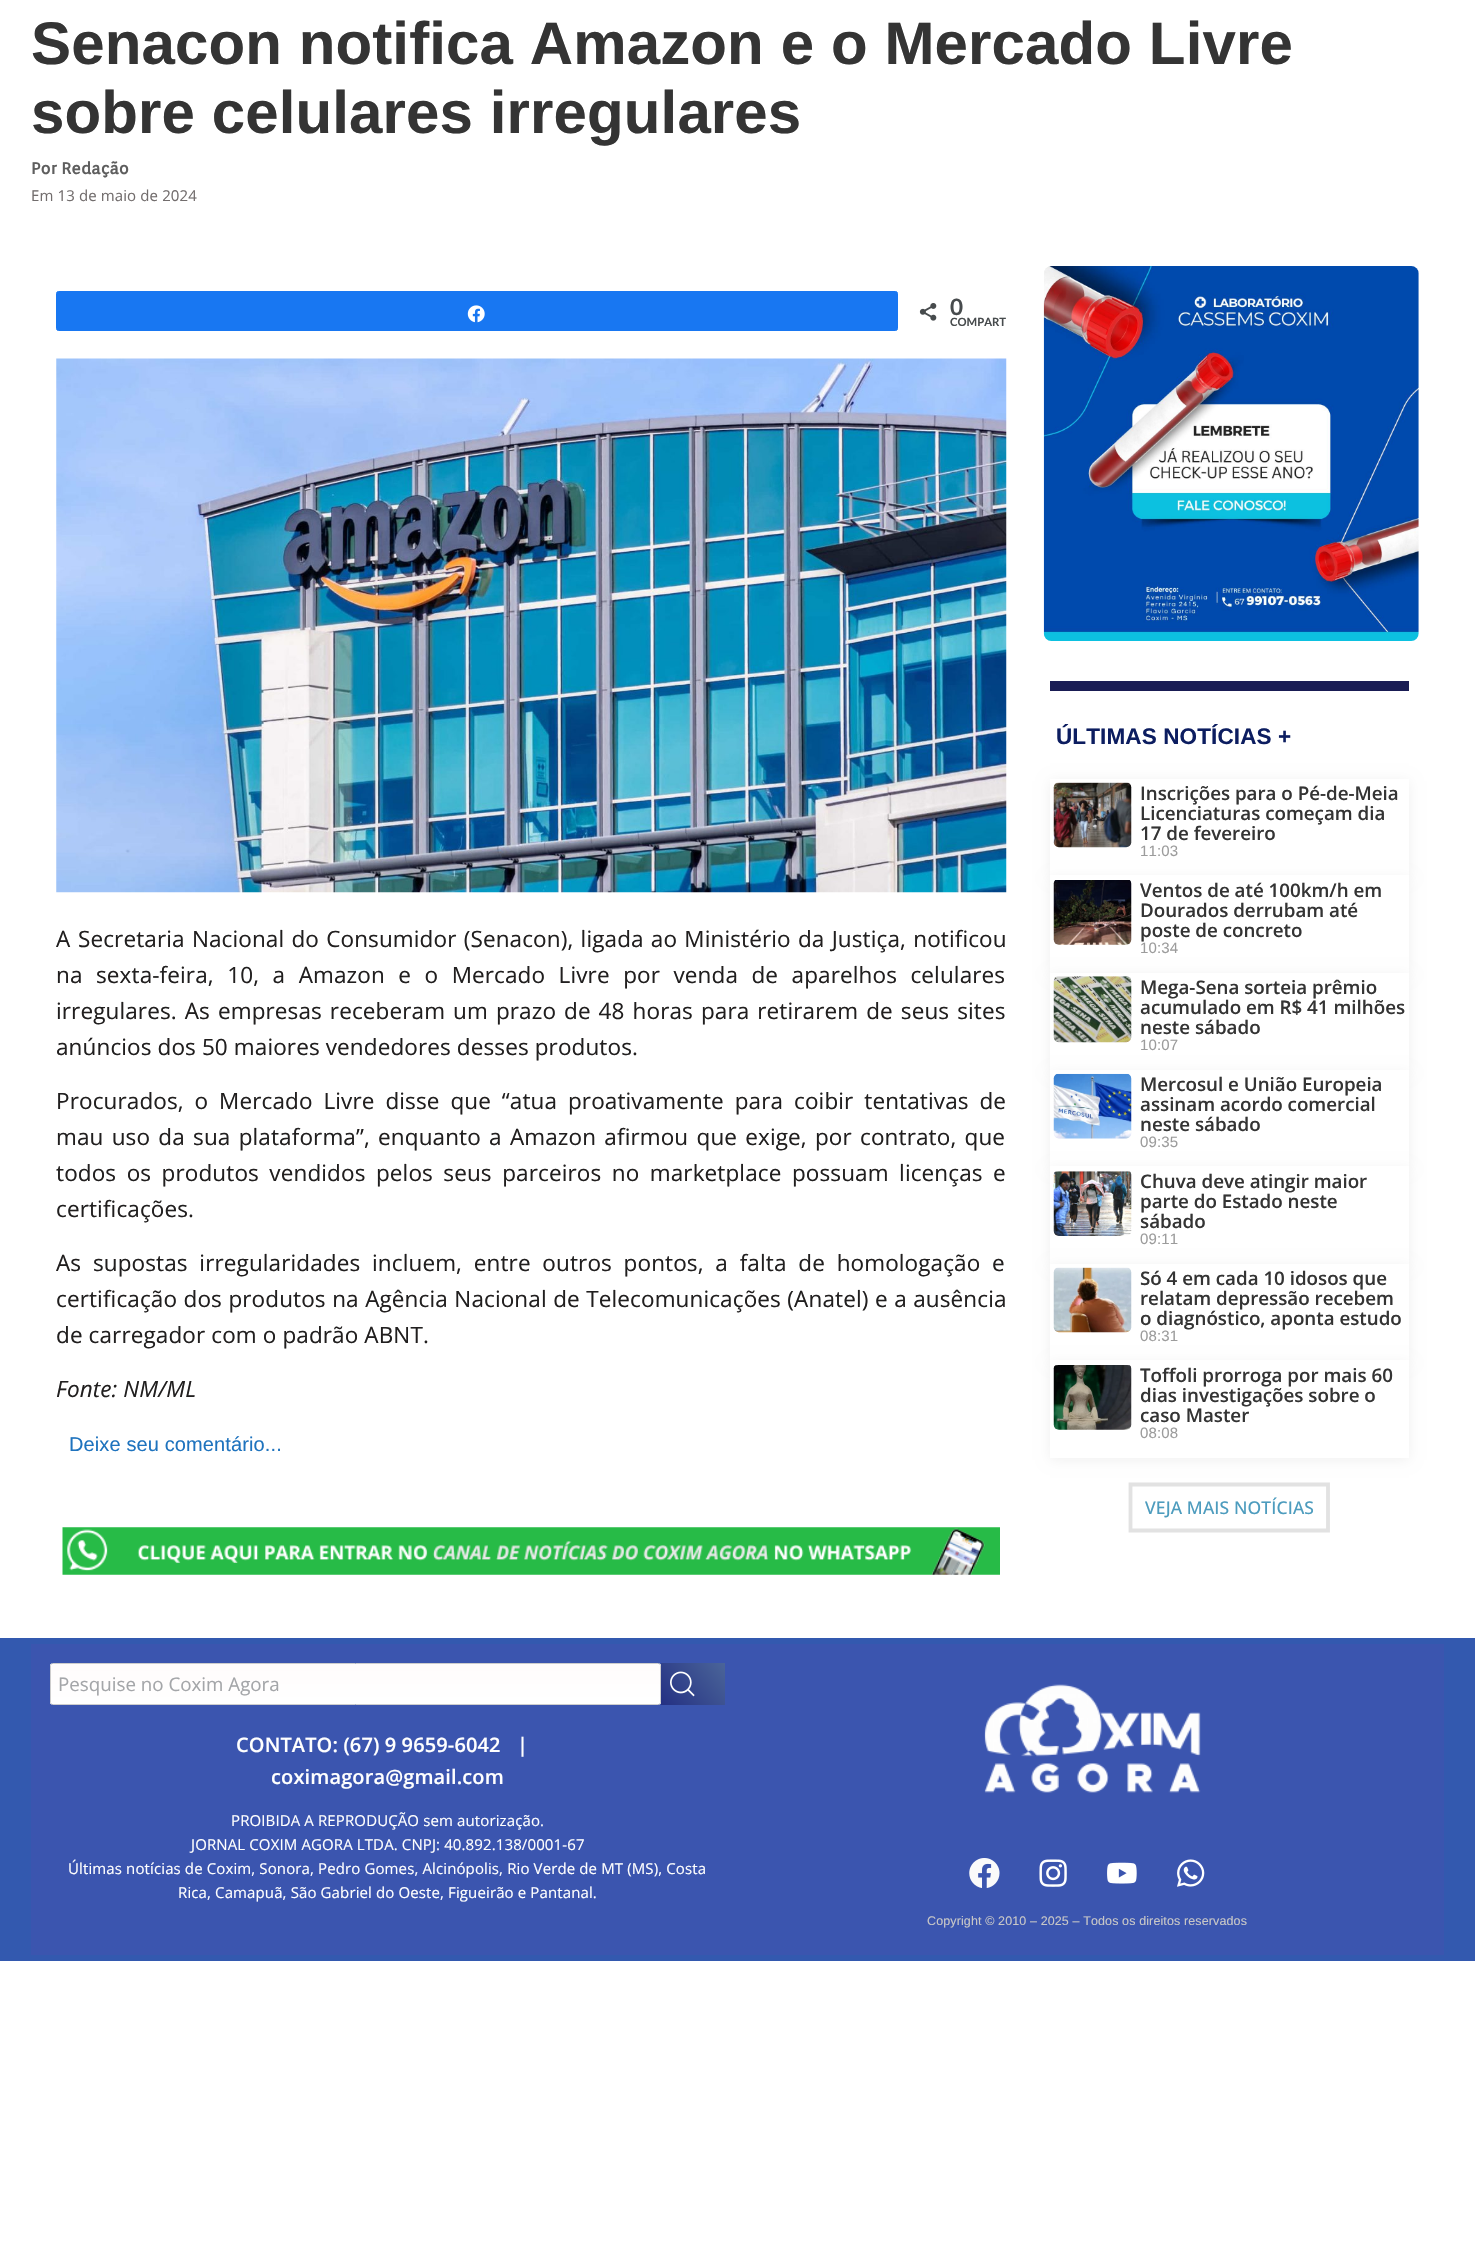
void draw(SkCanvas* canvas) {
    SkPaint paint;
    paint.setAntiAlias(true);
    auto spacedText = [&](const char* s, float x, float y, const SkFont& font, const SkPaint& ink, float letter, float word) {
        std::vector<SkGlyphID> glyphs(font.countText(s, strlen(s), SkTextEncoding::kUTF8));
        std::vector<float> xs(glyphs.size());
        font.textToGlyphs(s, strlen(s), SkTextEncoding::kUTF8, glyphs);
        font.getXPos(glyphs, xs, x);
        float extra = 0;
        for (size_t i = 0; i < glyphs.size(); i++) {
            xs[i] += extra;
            extra += letter + word * (glyphs[i] == font.unicharToGlyph(' '));
        }
        canvas->drawTextBlob(SkTextBlob::MakeFromPosHGlyphs(glyphs, xs, y, font), 0, 0, ink);
    };
    canvas->clear(0xFFFFFFFF);
    SkFont font1(fontMgr->matchFamilyStyle("Liberation Sans", SkFontStyle::Bold()), 60);
    font1.setSubpixel(true);
    paint.setColor(0xFF343434);
    spacedText("Senacon notifica Amazon e o Mercado Livre", 31, 64, font1, paint, 0.12f, 0);
    spacedText("sobre celulares irregulares", 31, 133, font1, paint, 0.12f, 0);
    SkFont font2(fontMgr->matchFamilyStyle("Orienta", SkFontStyle::Bold()), 16.25f);
    font2.setSubpixel(true);
    paint.setColor(0xFF5E5E5E);
    spacedText("Por Redação", 31, 174, font2, paint, 0.12f, 0);
    SkFont font3(fontMgr->matchFamilyStyle("Open Sans", SkFontStyle::Normal()), 15);
    font3.setSubpixel(true);
    paint.setColor(0xFF726D6D);
    spacedText("Em 13 de maio de 2024", 31, 201, font3, paint, 0.12f, 0);
    paint.setColor(0xFF1877F2);
    canvas->drawRoundRect(SkRect::MakeXYWH(56.5f, 291.5f, 841, 39), 2, 2, paint);
    paint.setStyle(SkPaint::kStroke_Style);
    paint.setStrokeWidth(1);
    canvas->drawRoundRect(SkRect::MakeXYWH(56.5f, 291.5f, 841, 39), 2, 2, paint);
    canvas->drawImageRect(SkImages::DeferredFromEncodedData(SkData::MakeFromFileName("img1.png")), SkRect::MakeXYWH(467, 305, 18, 18), SkSamplingOptions());
    canvas->drawImageRect(SkImages::DeferredFromEncodedData(SkData::MakeFromFileName("img2.png")), SkRect::MakeXYWH(919, 303, 18, 18), SkSamplingOptions());
    SkFont font4(fontMgr->matchFamilyStyle("Lato", SkFontStyle::Bold()), 22.5f);
    font4.setSubpixel(true);
    paint.setStyle(SkPaint::kFill_Style);
    paint.setColor(0xFF474B4D);
    spacedText("0", 950, 315, font4, paint, 0.12f, 0);
    SkFont font5(fontMgr->matchFamilyStyle("Lato", SkFontStyle::Bold()), 11.25f);
    font5.setSubpixel(true);
    canvas->drawString("COMPART", 950, 326, font5, paint);
    canvas->drawImageRect(SkImages::DeferredFromEncodedData(SkData::MakeFromFileName("img3.png")), SkRect::MakeXYWH(56, 358, 951, 535), SkSamplingOptions());
    SkFont font6(fontMgr->matchFamilyStyle("Open Sans", SkFontStyle::Normal()), 22.5f);
    font6.setSubpixel(true);
    paint.setColor(0xFF211F1F);
    spacedText("A", 56, 947, font6, paint, 0.12f, 0);
    spacedText("Secretaria Nacional do Consumidor (Senacon), ligada ao Ministério da Justiça, notificou", 78, 947, font6, paint, 0.12f, 1.25f);
    spacedText("na sexta-feira, 10, a Amazon e o Mercado Livre por venda de aparelhos celulares", 56, 983, font6, paint, 0.12f, 7.5f);
    spacedText("irregulares. As empresas receberam um prazo de 48 horas para retirarem de seus sites", 56, 1019, font6, paint, 0.12f, 2);
    spacedText("anúncios dos 50 maiores vendedores desses produtos.", 56, 1055, font6, paint, 0.12f, 0);
    spacedText("Procurados, o Mercado Livre disse que “atua proativamente para coibir tentativas de", 56, 1109, font6, paint, 0.12f, 4.9f);
    spacedText("mau uso da sua plataforma”, enquanto a Amazon afirmou que exige, por contrato, que", 56, 1145, font6, paint, 0.12f, 2.25f);
    spacedText("todos os produtos vendidos pelos seus parceiros no marketplace possuam licenças e", 56, 1181, font6, paint, 0.12f, 4.5f);
    spacedText("certificações.", 56, 1217, font6, paint, 0.12f, 0);
    spacedText("As supostas irregularidades incluem, entre outros pontos, a falta de homologação e", 56, 1271, font6, paint, 0.12f, 5.75f);
    spacedText("certificação dos produtos na Agência Nacional de Telecomunicações (Anatel) e a ausência", 56, 1307, font6, paint, 0.12f, 0.5f);
    spacedText("de carregador com o padrão ABNT.", 56, 1343, font6, paint, 0.12f, 0);
    SkFont font7(fontMgr->matchFamilyStyle("Open Sans", SkFontStyle::Italic()), 22.5f);
    font7.setSubpixel(true);
    spacedText("Fonte: NM/ML", 56, 1397, font7, paint, 0.12f, 0);
    SkFont font8(fontMgr->matchFamilyStyle("Liberation Sans", SkFontStyle::Normal()), 20);
    font8.setSubpixel(true);
    paint.setColor(0xFF1E73BE);
    spacedText("Deixe seu comentário...", 69, 1451, font8, paint, 0.12f, 0);
    canvas->drawImageRect(SkImages::DeferredFromEncodedData(SkData::MakeFromFileName("img4.png")), SkRect::MakeXYWH(62, 1527, 938, 48), SkSamplingOptions());
    canvas->drawImageRect(SkImages::DeferredFromEncodedData(SkData::MakeFromFileName("img5.png")), SkRect::MakeXYWH(1043, 266, 376, 375), SkSamplingOptions());
    paint.setColor(0xFF191C54);
    canvas->drawRect(SkRect::MakeXYWH(1050, 681, 359, 10), paint);
    SkFont font9(fontMgr->matchFamilyStyle("Liberation Sans", SkFontStyle::Bold()), 22.5f);
    font9.setSubpixel(true);
    paint.setColor(0xFF0C1D60);
    spacedText("ÚLTIMAS NOTÍCIAS +", 1056, 744, font9, paint, 0.12f, 0);
    paint.setColor(0x0F000000);
    paint.setMaskFilter(SkMaskFilter::MakeBlur(kNormal_SkBlurStyle, 6));
    canvas->drawRect(SkRect::MakeXYWH(1050, 781, 359, 97), paint);
    paint.setMaskFilter(nullptr);
    paint.setColor(0xFFFFFFFF);
    canvas->drawRect(SkRect::MakeXYWH(1050, 779, 359, 96), paint);
    canvas->drawImageRect(SkImages::DeferredFromEncodedData(SkData::MakeFromFileName("img6.png")), SkRect::MakeXYWH(1053, 782, 79, 66), SkSamplingOptions());
    SkFont font10(fontMgr->matchFamilyStyle("Open Sans", SkFontStyle(600, SkFontStyle::kNormal_Width, SkFontStyle::kUpright_Slant)), 18.75f);
    font10.setSubpixel(true);
    paint.setColor(0xFF343434);
    canvas->drawString("Inscrições para o Pé-de-Meia", 1140, 800, font10, paint);
    canvas->drawString("Licenciaturas começam dia", 1140, 820, font10, paint);
    canvas->drawString("17 de fevereiro", 1140, 840, font10, paint);
    SkFont font11(fontMgr->matchFamilyStyle("Liberation Sans", SkFontStyle::Normal()), 15);
    font11.setSubpixel(true);
    paint.setColor(0xFF9C9C9C);
    spacedText("11:03", 1140, 856, font11, paint, 0.12f, 0);
    paint.setColor(0x0F000000);
    paint.setMaskFilter(SkMaskFilter::MakeBlur(kNormal_SkBlurStyle, 6));
    canvas->drawRect(SkRect::MakeXYWH(1050, 878, 359, 97), paint);
    paint.setMaskFilter(nullptr);
    paint.setColor(0xFFFFFFFF);
    canvas->drawRect(SkRect::MakeXYWH(1050, 875, 359, 98), paint);
    canvas->drawImageRect(SkImages::DeferredFromEncodedData(SkData::MakeFromFileName("img7.png")), SkRect::MakeXYWH(1053, 880, 79, 65), SkSamplingOptions());
    paint.setColor(0xFF343434);
    canvas->drawString("Ventos de até 100km/h em", 1140, 897, font10, paint);
    canvas->drawString("Dourados derrubam até", 1140, 917, font10, paint);
    canvas->drawString("poste de concreto", 1140, 937, font10, paint);
    paint.setColor(0xFF9C9C9C);
    spacedText("10:34", 1140, 953, font11, paint, 0.12f, 0);
    paint.setColor(0x0F000000);
    paint.setMaskFilter(SkMaskFilter::MakeBlur(kNormal_SkBlurStyle, 6));
    canvas->drawRect(SkRect::MakeXYWH(1050, 975, 359, 98), paint);
    paint.setMaskFilter(nullptr);
    paint.setColor(0xFFFFFFFF);
    canvas->drawRect(SkRect::MakeXYWH(1050, 973, 359, 97), paint);
    canvas->drawImageRect(SkImages::DeferredFromEncodedData(SkData::MakeFromFileName("img8.png")), SkRect::MakeXYWH(1053, 976, 79, 67), SkSamplingOptions());
    paint.setColor(0xFF343434);
    canvas->drawString("Mega-Sena sorteia prêmio", 1140, 994, font10, paint);
    canvas->drawString("acumulado em R$ 41 milhões", 1140, 1014, font10, paint);
    canvas->drawString("neste sábado", 1140, 1034, font10, paint);
    paint.setColor(0xFF9C9C9C);
    spacedText("10:07", 1140, 1050, font11, paint, 0.12f, 0);
    paint.setColor(0x0F000000);
    paint.setMaskFilter(SkMaskFilter::MakeBlur(kNormal_SkBlurStyle, 6));
    canvas->drawRect(SkRect::MakeXYWH(1050, 1073, 359, 96), paint);
    paint.setMaskFilter(nullptr);
    paint.setColor(0xFFFFFFFF);
    canvas->drawRect(SkRect::MakeXYWH(1050, 1070, 359, 96), paint);
    canvas->drawImageRect(SkImages::DeferredFromEncodedData(SkData::MakeFromFileName("img9.png")), SkRect::MakeXYWH(1053, 1073, 79, 66), SkSamplingOptions());
    paint.setColor(0xFF343434);
    canvas->drawString("Mercosul e União Europeia", 1140, 1091, font10, paint);
    canvas->drawString("assinam acordo comercial", 1140, 1111, font10, paint);
    canvas->drawString("neste sábado", 1140, 1131, font10, paint);
    paint.setColor(0xFF9C9C9C);
    spacedText("09:35", 1140, 1147, font11, paint, 0.12f, 0);
    paint.setColor(0x0F000000);
    paint.setMaskFilter(SkMaskFilter::MakeBlur(kNormal_SkBlurStyle, 6));
    canvas->drawRect(SkRect::MakeXYWH(1050, 1169, 359, 97), paint);
    paint.setMaskFilter(nullptr);
    paint.setColor(0xFFFFFFFF);
    canvas->drawRect(SkRect::MakeXYWH(1050, 1166, 359, 98), paint);
    canvas->drawImageRect(SkImages::DeferredFromEncodedData(SkData::MakeFromFileName("img10.png")), SkRect::MakeXYWH(1053, 1171, 79, 65), SkSamplingOptions());
    paint.setColor(0xFF343434);
    canvas->drawString("Chuva deve atingir maior", 1140, 1188, font10, paint);
    canvas->drawString("parte do Estado neste", 1140, 1208, font10, paint);
    canvas->drawString("sábado", 1140, 1228, font10, paint);
    paint.setColor(0xFF9C9C9C);
    spacedText("09:11", 1140, 1244, font11, paint, 0.12f, 0);
    paint.setColor(0x0F000000);
    paint.setMaskFilter(SkMaskFilter::MakeBlur(kNormal_SkBlurStyle, 6));
    canvas->drawRect(SkRect::MakeXYWH(1050, 1266, 359, 97), paint);
    paint.setMaskFilter(nullptr);
    paint.setColor(0xFFFFFFFF);
    canvas->drawRect(SkRect::MakeXYWH(1050, 1264, 359, 96), paint);
    canvas->drawImageRect(SkImages::DeferredFromEncodedData(SkData::MakeFromFileName("img11.png")), SkRect::MakeXYWH(1053, 1267, 79, 66), SkSamplingOptions());
    paint.setColor(0xFF343434);
    canvas->drawString("Só 4 em cada 10 idosos que", 1140, 1285, font10, paint);
    canvas->drawString("relatam depressão recebem", 1140, 1305, font10, paint);
    canvas->drawString("o diagnóstico, aponta estudo", 1140, 1325, font10, paint);
    paint.setColor(0xFF9C9C9C);
    spacedText("08:31", 1140, 1341, font11, paint, 0.12f, 0);
    paint.setColor(0x0F000000);
    paint.setMaskFilter(SkMaskFilter::MakeBlur(kNormal_SkBlurStyle, 6));
    canvas->drawRect(SkRect::MakeXYWH(1050, 1363, 359, 97), paint);
    paint.setMaskFilter(nullptr);
    paint.setColor(0xFFFFFFFF);
    canvas->drawRect(SkRect::MakeXYWH(1050, 1360, 359, 98), paint);
    canvas->drawImageRect(SkImages::DeferredFromEncodedData(SkData::MakeFromFileName("img12.png")), SkRect::MakeXYWH(1053, 1365, 79, 65), SkSamplingOptions());
    paint.setColor(0xFF343434);
    canvas->drawString("Toffoli prorroga por mais 60", 1140, 1382, font10, paint);
    canvas->drawString("dias investigações sobre o", 1140, 1402, font10, paint);
    canvas->drawString("caso Master", 1140, 1422, font10, paint);
    paint.setColor(0xFF9C9C9C);
    spacedText("08:08", 1140, 1438, font11, paint, 0.12f, 0);
    paint.setStyle(SkPaint::kStroke_Style);
    paint.setStrokeWidth(3.8f);
    paint.setColor(0xFFE2E2E2);
    canvas->drawPath(SkPathBuilder().moveTo(1130.5f, 1484.5f).lineTo(1328, 1484.5f).lineTo(1328, 1530.5f).lineTo(1130.5f, 1530.5f).close().detach(), paint);
    SkFont font12(fontMgr->matchFamilyStyle("Open Sans", SkFontStyle(500, SkFontStyle::kNormal_Width, SkFontStyle::kUpright_Slant)), 17.5f);
    font12.setSubpixel(true);
    paint.setStyle(SkPaint::kFill_Style);
    paint.setColor(0xFF4D9CBE);
    spacedText("VEJA MAIS NOTÍCIAS", 1145, 1514, font12, paint, 0.12f, 0);
    paint.setColor(0xFF3359AF);
    canvas->drawRect(SkRect::MakeXYWH(0, 1638, 1475, 323), paint);
    paint.setColor(0xFF3B55AF);
    canvas->drawRect(SkRect::MakeXYWH(31, 1644, 1413, 311), paint);
    canvas->save();
    canvas->clipPath(SkPathBuilder().moveTo(52.5f, 1663).lineTo(658.5f, 1663).cubicTo(660, 1663, 661, 1664, 661, 1665.5f).lineTo(661, 1702.5f).cubicTo(661, 1704, 660, 1705, 658.5f, 1705).lineTo(52.5f, 1705).cubicTo(51, 1705, 50, 1704, 50, 1702.5f).lineTo(50, 1665.5f).cubicTo(50, 1664, 51, 1663, 52.5f, 1663).close().detach(), true);
    {
        const SkColor colors[] = {0xFFFFFCFC, 0xFFFFFFFF};
        const float stops[] = {0, 1};
        const SkPoint ends[] = {{356, 1664}, {356, 1704}};
        paint.setShader(SkGradientShader::MakeLinear(ends, colors, stops, 2, SkTileMode::kClamp));
        paint.setAlpha(255);
    }
    canvas->drawRect(SkRect::MakeXYWH(50, 1664, 611, 40), paint);
    canvas->restore();
    paint.setStyle(SkPaint::kStroke_Style);
    paint.setStrokeWidth(1);
    paint.setShader(nullptr);
    paint.setColor(0xFFCDCDCD);
    canvas->drawRoundRect(SkRect::MakeXYWH(50.5f, 1663.5f, 610, 41), 2, 2, paint);
    SkFont font13(fontMgr->matchFamilyStyle("Open Sans", SkFontStyle::Normal()), 18.75f);
    font13.setSubpixel(true);
    paint.setStyle(SkPaint::kFill_Style);
    paint.setColor(0xFFA4A6A9);
    canvas->drawString("Pesquise no Coxim Agora", 58, 1691, font13, paint);
    {
        const SkColor colors[] = {0xFF4B6599, 0xFF243083};
        const float stops[] = {0, 1};
        const SkPoint ends[] = {{723, 1660}, {663, 1707}};
        paint.setShader(SkGradientShader::MakeLinear(ends, colors, stops, 2, SkTileMode::kClamp));
        paint.setAlpha(255);
    }
    canvas->drawRect(SkRect::MakeXYWH(661, 1663, 64, 42), paint);
    canvas->drawImageRect(SkImages::DeferredFromEncodedData(SkData::MakeFromFileName("img13.png")), SkRect::MakeXYWH(670, 1671, 25, 26), SkSamplingOptions());
    SkFont font14(fontMgr->matchFamilyStyle("Open Sans", SkFontStyle(600, SkFontStyle::kNormal_Width, SkFontStyle::kUpright_Slant)), 20);
    font14.setSubpixel(true);
    paint.setShader(nullptr);
    paint.setColor(0xFFFFFFFF);
    spacedText("CONTATO: (67) 9 9659-6042", 236, 1752, font14, paint, 0.12f, 0);
    spacedText("|", 517, 1752, font14, paint, 0.12f, 0);
    spacedText("coximagora@gmail.com", 271, 1784, font14, paint, 0.12f, 0);
    spacedText("PROIBIDA A REPRODUÇÃO sem autorização.", 231, 1826, font3, paint, 0.12f, 0);
    spacedText("JORNAL COXIM AGORA LTDA. CNPJ: 40.892.138/0001-67", 191, 1850, font3, paint, 0.12f, 0);
    spacedText("Últimas notícias de Coxim, Sonora, Pedro Gomes, Alcinópolis, Rio Verde de MT (MS), Costa", 68, 1874, font3, paint, 0.12f, 0);
    spacedText("Rica, Camapuã, São Gabriel do Oeste, Figueirão e Pantanal.", 178, 1898, font3, paint, 0.12f, 0);
    canvas->drawImageRect(SkImages::DeferredFromEncodedData(SkData::MakeFromFileName("img14.png")), SkRect::MakeXYWH(984, 1684, 217, 109), SkSamplingOptions());
    canvas->drawImageRect(SkImages::DeferredFromEncodedData(SkData::MakeFromFileName("img15.png")), SkRect::MakeXYWH(969, 1858, 31, 30), SkSamplingOptions());
    canvas->drawImageRect(SkImages::DeferredFromEncodedData(SkData::MakeFromFileName("img16.png")), SkRect::MakeXYWH(1039, 1859, 28, 28), SkSamplingOptions());
    canvas->drawImageRect(SkImages::DeferredFromEncodedData(SkData::MakeFromFileName("img17.png")), SkRect::MakeXYWH(1107, 1862, 30, 22), SkSamplingOptions());
    canvas->drawImageRect(SkImages::DeferredFromEncodedData(SkData::MakeFromFileName("img18.png")), SkRect::MakeXYWH(1177, 1859, 28, 28), SkSamplingOptions());
    SkFont font15(fontMgr->matchFamilyStyle("Liberation Sans", SkFontStyle::Normal()), 12.5f);
    font15.setSubpixel(true);
    paint.setColor(0xFFC8C7C7);
    spacedText("Copyright © 2010 – 2025 – Todos os direitos reservados", 927, 1925, font15, paint, 0.12f, 0);
}
